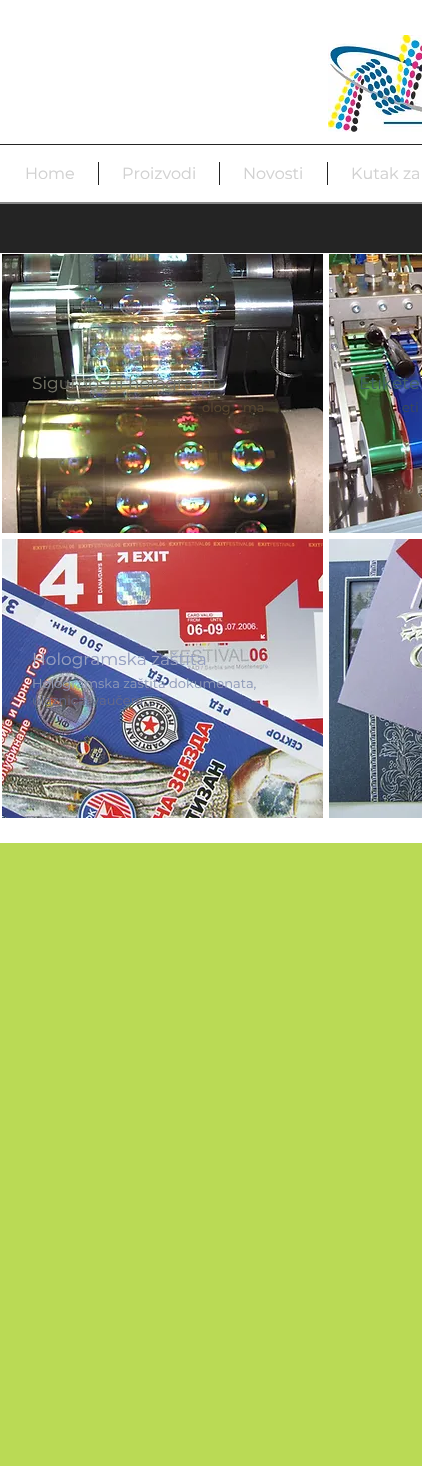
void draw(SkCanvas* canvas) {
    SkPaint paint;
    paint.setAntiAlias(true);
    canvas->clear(0xFFBADA55);
    paint.setColor(0xFFFFFFFF);
    canvas->drawRect(SkRect::MakeXYWH(0, 0, 422, 202), paint);
    paint.setColor(0xFF8B8B8B);
    canvas->drawRect(SkRect::MakeXYWH(0, 202, 422, 2), paint);
    canvas->drawImageRect(SkImages::DeferredFromEncodedData(SkData::MakeFromFileName("img1.png")), SkRect::MakeXYWH(328, 35, 94, 97), SkSamplingOptions());
    paint.setColor(0xFF242424);
    canvas->drawRect(SkRect::MakeXYWH(0, 144, 422, 1), paint);
    SkFont font1(fontMgr->matchFamilyStyle("Montserrat", SkFontStyle::Normal()), 16);
    font1.setSubpixel(true);
    paint.setColor(0xFFD1D1D1);
    canvas->drawString("Home", 25, 179, font1, paint);
    paint.setColor(0xFF242424);
    canvas->drawRect(SkRect::MakeXYWH(98, 162, 1, 23), paint);
    paint.setColor(0xFFD1D1D1);
    canvas->drawString("Proizvodi", 122, 179, font1, paint);
    paint.setColor(0xFF242424);
    canvas->drawRect(SkRect::MakeXYWH(219, 162, 1, 23), paint);
    paint.setColor(0xFFD1D1D1);
    canvas->drawString("Novosti", 243, 179, font1, paint);
    paint.setColor(0xFF242424);
    canvas->drawRect(SkRect::MakeXYWH(327, 162, 1, 23), paint);
    paint.setColor(0xFFD1D1D1);
    canvas->drawString("Kutak za", 351, 179, font1, paint);
    paint.setColor(0xFFFFFFFF);
    canvas->drawRect(SkRect::MakeXYWH(0, 253, 422, 590), paint);
    paint.setColor(0xFF242424);
    canvas->drawRect(SkRect::MakeXYWH(0, 204, 422, 49), paint);
    canvas->drawImageRect(SkImages::DeferredFromEncodedData(SkData::MakeFromFileName("img2.png")), SkRect::MakeXYWH(2, 254, 321, 279), SkSamplingOptions());
    SkFont font2(fontMgr->matchFamilyStyle("Montserrat", SkFontStyle::Normal()), 17);
    font2.setSubpixel(true);
    paint.setColor(0xFF737367);
    canvas->drawString("Sigurnosni hologrami", 32, 389, font2, paint);
    SkFont font3(fontMgr->matchFamilyStyle("Montserrat", SkFontStyle::Normal()), 13);
    font3.setSubpixel(true);
    paint.setColor(0xFF5A4932);
    canvas->drawString("zvo", 58, 412, font3, paint);
    canvas->drawString("olog", 202, 412, font3, paint);
    canvas->drawString("ma", 243, 412, font3, paint);
    canvas->drawImageRect(SkImages::DeferredFromEncodedData(SkData::MakeFromFileName("img3.png")), SkRect::MakeXYWH(329, 254, 93, 279), SkSamplingOptions());
    paint.setColor(0xFF3F5F63);
    canvas->drawString("Etikete", 359, 389, font2, paint);
    paint.setColor(0xFF374754);
    canvas->drawString("eti", 402, 412, font3, paint);
    canvas->drawImageRect(SkImages::DeferredFromEncodedData(SkData::MakeFromFileName("img4.png")), SkRect::MakeXYWH(2, 539, 321, 279), SkSamplingOptions());
    paint.setColor(0xFF969FC0);
    canvas->drawString("Hologramska zaštita", 32, 665, font2, paint);
    paint.setColor(0xFF8E99B7);
    canvas->drawString("Hologramska zaštita dokumenata,", 32, 688, font3, paint);
    paint.setColor(0xFF656886);
    canvas->drawString("ulaznica, vaučera ...", 32, 705, font3, paint);
    canvas->drawImageRect(SkImages::DeferredFromEncodedData(SkData::MakeFromFileName("img5.png")), SkRect::MakeXYWH(329, 539, 93, 279), SkSamplingOptions());
}
